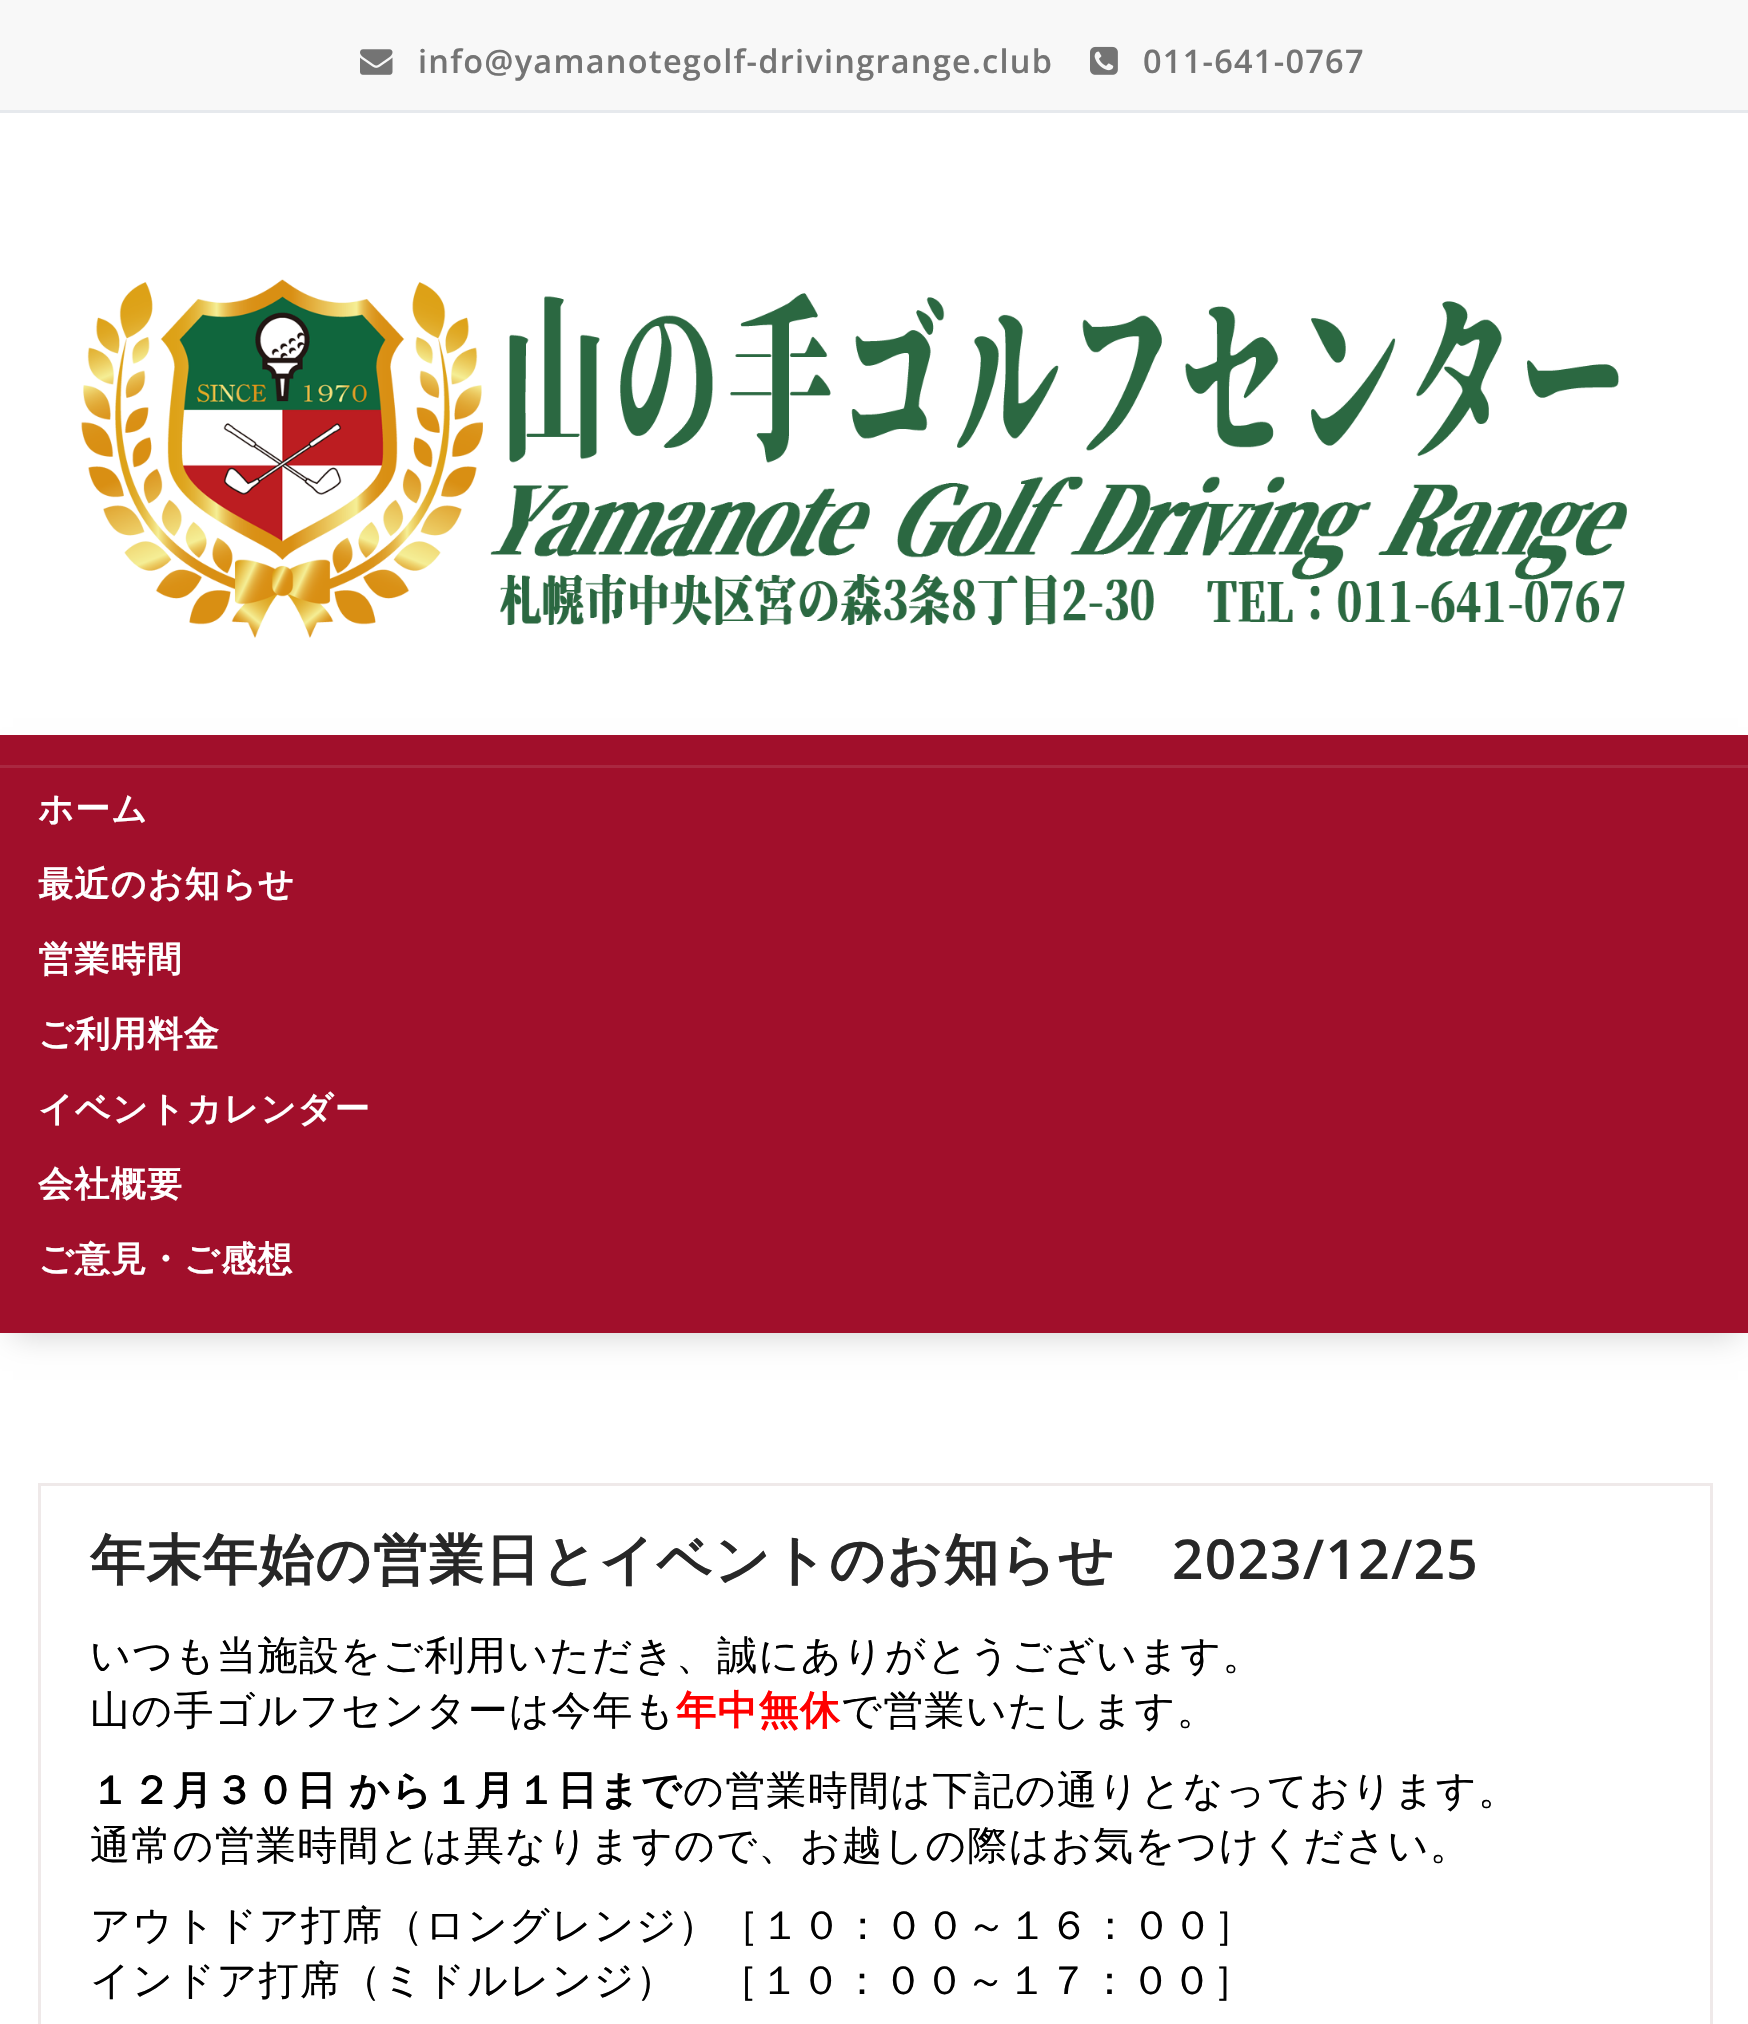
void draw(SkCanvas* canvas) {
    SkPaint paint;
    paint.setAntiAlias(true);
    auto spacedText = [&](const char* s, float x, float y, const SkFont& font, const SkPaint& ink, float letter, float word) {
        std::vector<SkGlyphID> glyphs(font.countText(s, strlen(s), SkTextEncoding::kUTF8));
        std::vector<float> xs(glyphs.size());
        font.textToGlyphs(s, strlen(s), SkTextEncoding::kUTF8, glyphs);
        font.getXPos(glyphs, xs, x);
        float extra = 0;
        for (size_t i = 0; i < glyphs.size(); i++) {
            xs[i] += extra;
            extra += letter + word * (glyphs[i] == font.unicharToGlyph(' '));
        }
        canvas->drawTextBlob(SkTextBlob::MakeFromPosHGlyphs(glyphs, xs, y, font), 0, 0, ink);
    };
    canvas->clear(0xFFFFFFFF);
    paint.setColor(0xFFF8F8F8);
    canvas->drawRect(SkRect::MakeXYWH(0, 0, 1748, 110), paint);
    paint.setColor(0xFFE6E9ED);
    canvas->drawRect(SkRect::MakeXYWH(0, 110, 1748, 3), paint);
    canvas->drawImageRect(SkImages::DeferredFromEncodedData(SkData::MakeFromFileName("img1.png")), SkRect::MakeXYWH(360, 49, 33, 26), SkSamplingOptions());
    SkFont font1(fontMgr->matchFamilyStyle("Open Sans", SkFontStyle(600, SkFontStyle::kNormal_Width, SkFontStyle::kUpright_Slant)), 32.5f);
    font1.setSubpixel(true);
    paint.setColor(0xFF747474);
    spacedText("info@yamanotegolf-drivingrange.club", 418, 73, font1, paint, 1.25f, 0);
    canvas->drawImageRect(SkImages::DeferredFromEncodedData(SkData::MakeFromFileName("img2.png")), SkRect::MakeXYWH(1090, 46, 28, 29), SkSamplingOptions());
    spacedText("011-641-0767", 1143, 73, font1, paint, 1.25f, 0);
    canvas->drawImageRect(SkImages::DeferredFromEncodedData(SkData::MakeFromFileName("img3.png")), SkRect::MakeXYWH(81, 279, 1546, 359), SkSamplingOptions());
    paint.setColor(0x2E000000);
    paint.setMaskFilter(SkMaskFilter::MakeBlur(kNormal_SkBlurStyle, 15));
    canvas->drawRect(SkRect::MakeXYWH(13, 763, 1725, 572), paint);
    paint.setMaskFilter(nullptr);
    paint.setColor(0xFFA10F2B);
    canvas->drawRect(SkRect::MakeXYWH(0, 735, 1748, 598), paint);
    paint.setColor(0xFFAA2740);
    canvas->drawRect(SkRect::MakeXYWH(0, 765, 1748, 3), paint);
    SkFont font2(fontMgr->matchFamilyStyle("WenQuanYi Zen Hei", SkFontStyle::Bold()), 35);
    font2.setSubpixel(true);
    paint.setColor(0xFFFFFFFF);
    spacedText("ホーム", 38, 821, font2, paint, 1.25f, 0);
    spacedText("最近のお知らせ", 38, 896, font2, paint, 1.25f, 0);
    spacedText("営業時間", 38, 971, font2, paint, 1.25f, 0);
    spacedText("ご利用料金", 38, 1046, font2, paint, 1.25f, 0);
    spacedText("イベントカレンダー", 38, 1121, font2, paint, 1.25f, 0);
    spacedText("会社概要", 38, 1196, font2, paint, 1.25f, 0);
    spacedText("ご意見・ご感想", 38, 1271, font2, paint, 1.25f, 0);
    paint.setStyle(SkPaint::kStroke_Style);
    paint.setStrokeWidth(3);
    paint.setColor(0xFFEFE9E9);
    canvas->drawRect(SkRect::MakeXYWH(39.5f, 1484.5f, 1672, 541), paint);
    SkFont font3(fontMgr->matchFamilyStyle("WenQuanYi Zen Hei", SkFontStyle::Bold()), 55);
    font3.setSubpixel(true);
    paint.setStyle(SkPaint::kFill_Style);
    paint.setColor(0xFF272727);
    spacedText("年末年始の営業日とイベントのお知らせ", 90, 1579, font3, paint, 1.25f, 0);
    SkFont font4(fontMgr->matchFamilyStyle("Open Sans", SkFontStyle(600, SkFontStyle::kNormal_Width, SkFontStyle::kUpright_Slant)), 55);
    font4.setSubpixel(true);
    spacedText("2023/12/25", 1172, 1579, font4, paint, 1.25f, 0);
    SkFont font5(fontMgr->matchFamilyStyle("WenQuanYi Zen Hei", SkFontStyle(500, SkFontStyle::kNormal_Width, SkFontStyle::kUpright_Slant)), 40);
    font5.setSubpixel(true);
    paint.setColor(0xFF000000);
    spacedText("いつも当施設をご利用いただき、誠にありがとうございます。", 90, 1669, font5, paint, 1.25f, 0);
    spacedText("山の手ゴルフセンターは今年も", 90, 1724, font5, paint, 1.25f, 0);
    SkFont font6(fontMgr->matchFamilyStyle("WenQuanYi Zen Hei", SkFontStyle::Bold()), 40);
    font6.setSubpixel(true);
    paint.setColor(0xFFFF0000);
    spacedText("年中無休", 676, 1724, font6, paint, 1.25f, 0);
    paint.setColor(0xFF000000);
    spacedText("で営業いたします。", 841, 1724, font5, paint, 1.25f, 0);
    spacedText("１２月３０日", 90, 1804, font6, paint, 1.25f, 0);
    spacedText("から１月１日まで", 349, 1804, font6, paint, 1.25f, 0);
    spacedText("の営業時間は下記の通りとなっております。", 683, 1804, font5, paint, 1.25f, 0);
    spacedText("通常の営業時間とは異なりますので、お越しの際はお気をつけください。", 90, 1859, font5, paint, 1.25f, 0);
    spacedText("アウトドア打席（ロングレンジ）［１０：００～１６：００］", 90, 1939, font5, paint, 1.25f, 0);
    spacedText("インドア打席（ミドルレンジ）　［１０：００～１７：００］", 90, 1994, font5, paint, 1.25f, 0);
}
